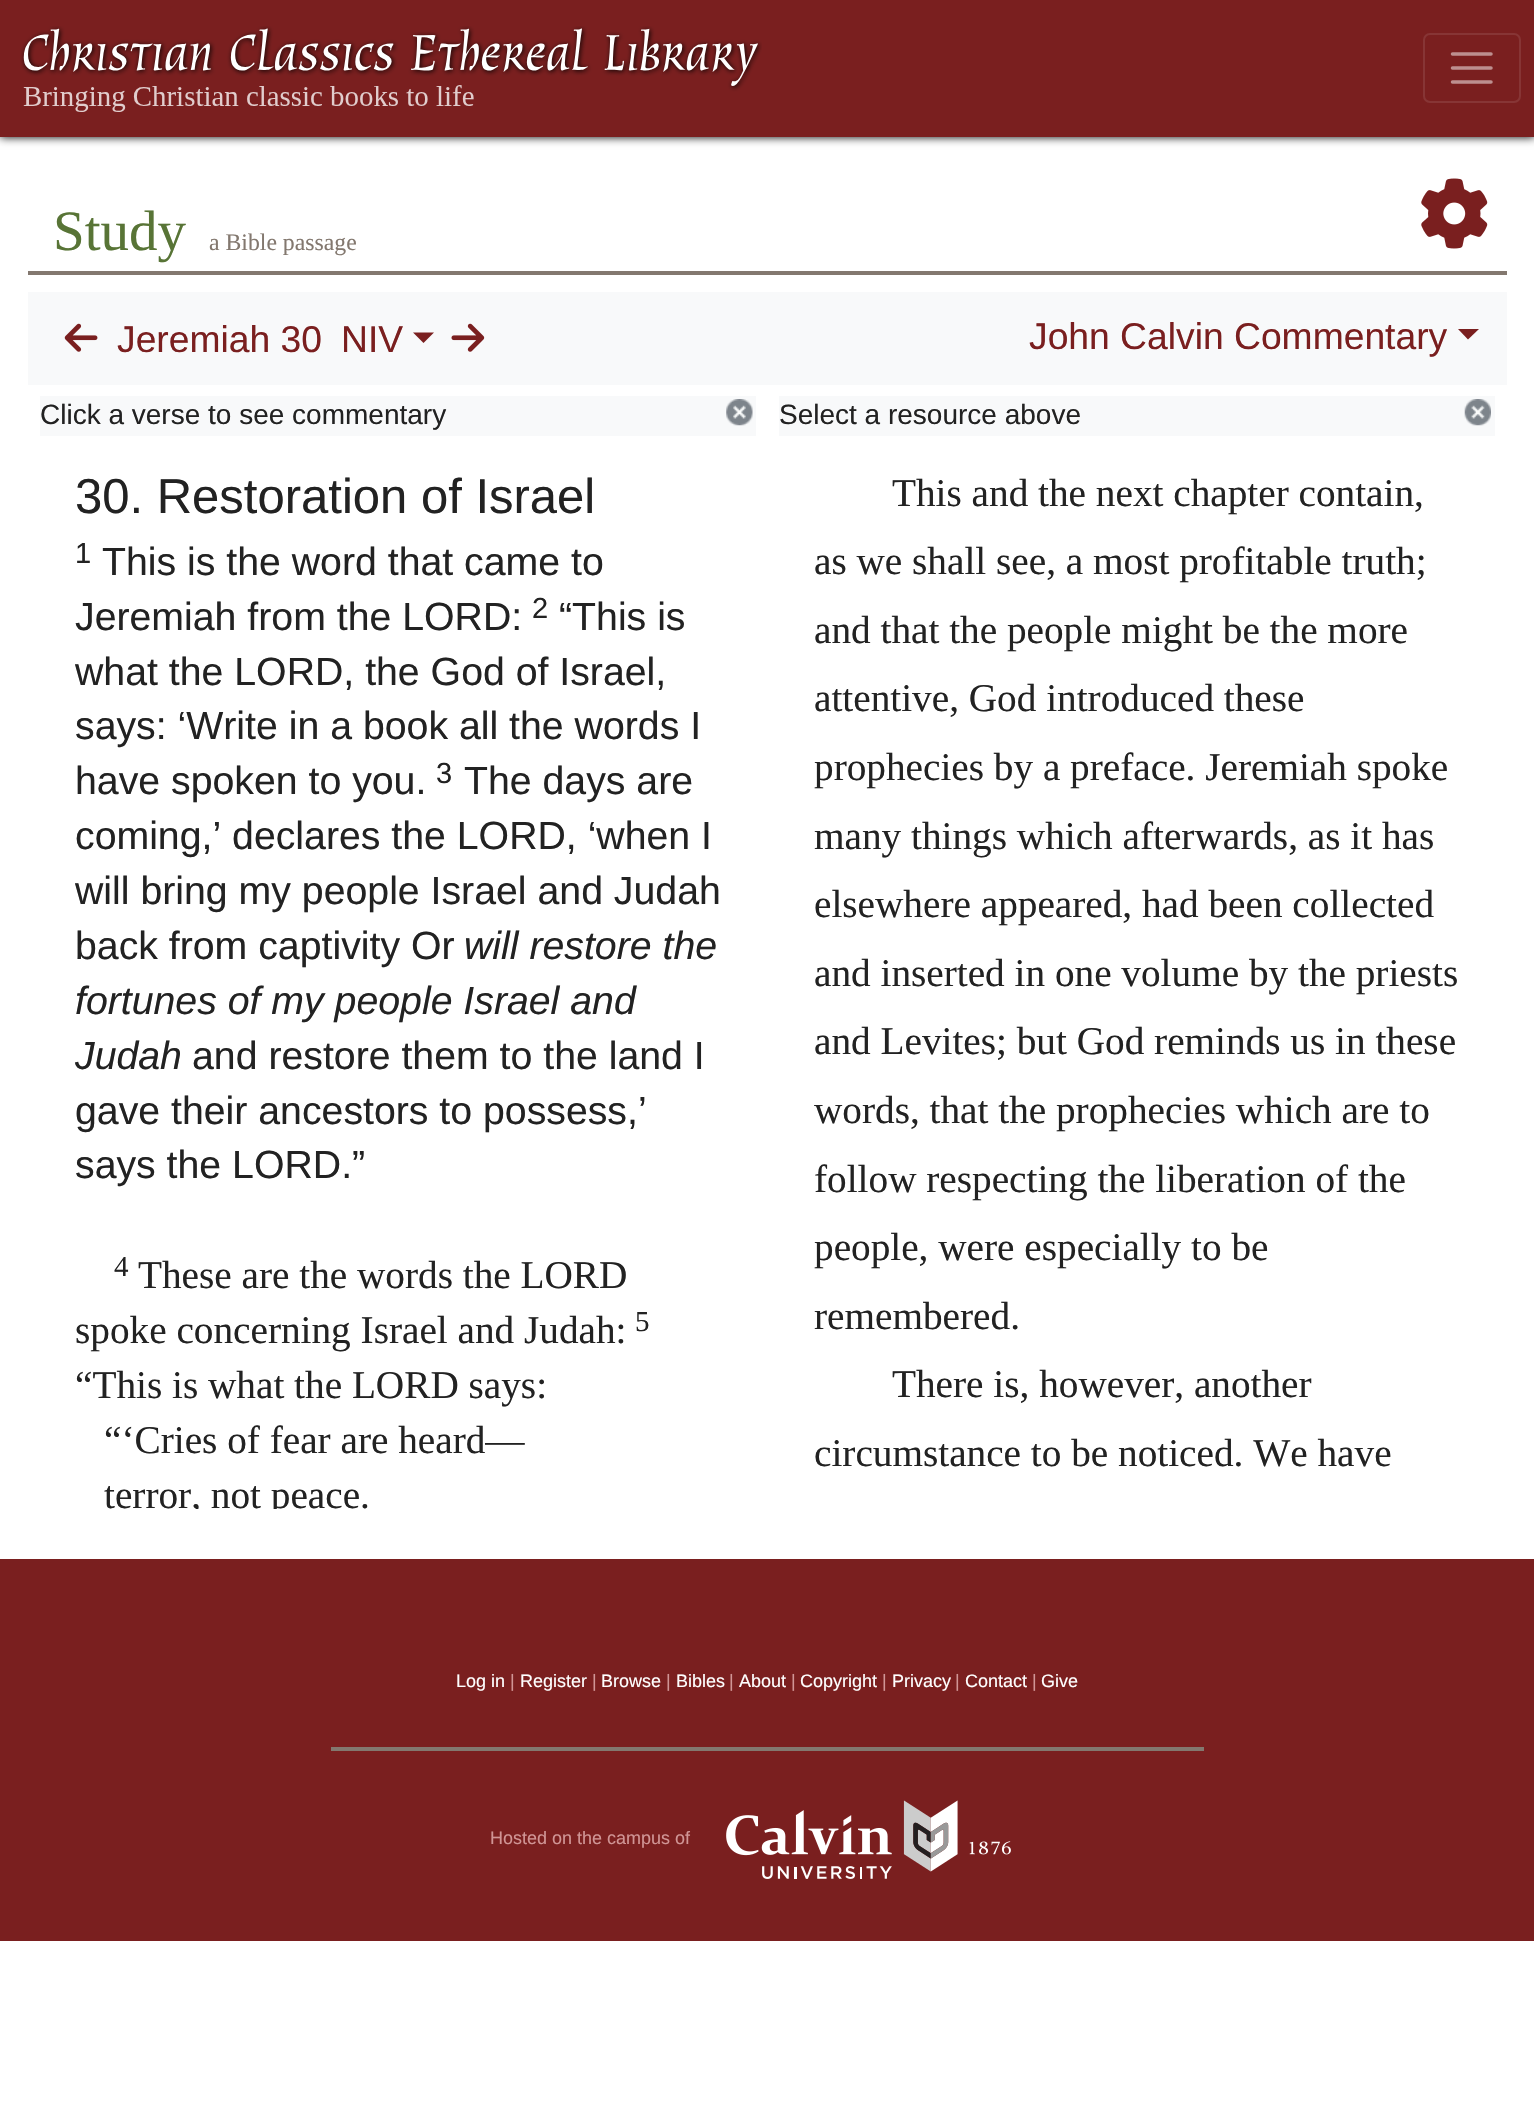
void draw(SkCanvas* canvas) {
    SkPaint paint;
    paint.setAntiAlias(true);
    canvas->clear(0xFFFFFFFF);
    paint.setColor(0xFF000000);
    paint.setMaskFilter(SkMaskFilter::MakeBlur(kNormal_SkBlurStyle, 4.5f));
    canvas->drawRect(SkRect::MakeXYWH(0, 0, 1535, 137), paint);
    paint.setMaskFilter(nullptr);
    paint.setColor(0xFF7A1F1F);
    canvas->drawRect(SkRect::MakeXYWH(0, 0, 1534, 137), paint);
    canvas->drawImageRect(SkImages::DeferredFromEncodedData(SkData::MakeFromFileName("img1.png")), SkRect::MakeXYWH(20, 26, 742, 86), SkSamplingOptions());
    paint.setStyle(SkPaint::kStroke_Style);
    paint.setStrokeWidth(2);
    paint.setColor(0xFF873535);
    canvas->drawRoundRect(SkRect::MakeXYWH(1424, 34, 96, 68), 6, 6, paint);
    paint.setStrokeWidth(3.5f);
    paint.setStrokeCap(SkPaint::kRound_Cap);
    paint.setColor(0xFFBD8F8F);
    canvas->drawPath(SkPathBuilder().moveTo(1452.5f, 54).lineTo(1491, 54).moveTo(1452.5f, 68).lineTo(1491, 68).moveTo(1452.5f, 82).lineTo(1491, 82).detach(), paint);
    paint.setStyle(SkPaint::kFill_Style);
    paint.setColor(0xFF83786F);
    canvas->drawRect(SkRect::MakeXYWH(28, 271, 1479, 4), paint);
    SkFont font1(fontMgr->matchFamilyStyle("Liberation Serif", SkFontStyle::Normal()), 57);
    font1.setSubpixel(true);
    paint.setColor(0xFF587436);
    canvas->drawString("Study", 53, 250, font1, paint);
    SkFont font2(fontMgr->matchFamilyStyle("Liberation Serif", SkFontStyle::Normal()), 23.75f);
    font2.setSubpixel(true);
    paint.setColor(0xFF83786F);
    canvas->drawString("a Bible passage", 209, 250, font2, paint);
    canvas->drawImageRect(SkImages::DeferredFromEncodedData(SkData::MakeFromFileName("img2.png")), SkRect::MakeXYWH(1421, 178, 67, 71), SkSamplingOptions());
    paint.setColor(0xFFF8F9FA);
    canvas->drawRect(SkRect::MakeXYWH(28, 292, 1479, 93), paint);
    canvas->drawImageRect(SkImages::DeferredFromEncodedData(SkData::MakeFromFileName("img3.png")), SkRect::MakeXYWH(64, 323, 34, 29), SkSamplingOptions());
    SkFont font3(fontMgr->matchFamilyStyle("Liberation Sans", SkFontStyle::Normal()), 37.25f);
    font3.setSubpixel(true);
    paint.setColor(0xFF7A1F1F);
    canvas->drawString("Jeremiah 30", 117, 352, font3, paint);
    canvas->drawString("NIV", 341, 352, font3, paint);
    canvas->drawPath(SkPathBuilder().moveTo(413, 332.5f).lineTo(434, 332.5f).lineTo(423.5f, 343).close().detach(), paint);
    canvas->drawImageRect(SkImages::DeferredFromEncodedData(SkData::MakeFromFileName("img4.png")), SkRect::MakeXYWH(451, 323, 34, 29), SkSamplingOptions());
    canvas->drawString("John Calvin Commentary", 1029, 349, font3, paint);
    canvas->drawPath(SkPathBuilder().moveTo(1458, 329).lineTo(1479, 329).lineTo(1468, 339.5f).close().detach(), paint);
    paint.setColor(0xFFF8F9FA);
    canvas->drawRect(SkRect::MakeXYWH(40, 396, 716, 40), paint);
    SkFont font4(fontMgr->matchFamilyStyle("Liberation Sans", SkFontStyle::Normal()), 28);
    font4.setSubpixel(true);
    paint.setColor(0xFF222222);
    canvas->drawString("Click a verse to see commentary", 40, 424, font4, paint);
    canvas->drawImageRect(SkImages::DeferredFromEncodedData(SkData::MakeFromFileName("img5.png")), SkRect::MakeXYWH(726, 399, 27, 27), SkSamplingOptions());
    paint.setColor(0xFFF8F9FA);
    canvas->drawRect(SkRect::MakeXYWH(779, 396, 716, 40), paint);
    paint.setColor(0xFF222222);
    canvas->drawString("Select a resource above", 779, 424, font4, paint);
    canvas->drawImageRect(SkImages::DeferredFromEncodedData(SkData::MakeFromFileName("img6.png")), SkRect::MakeXYWH(1464, 399, 27, 27), SkSamplingOptions());
    SkFont font5(fontMgr->matchFamilyStyle("Liberation Sans", SkFontStyle::Normal()), 49);
    font5.setSubpixel(true);
    canvas->drawString("30. Restoration of Israel", 75, 513, font5, paint);
    SkFont font6(fontMgr->matchFamilyStyle("Liberation Sans", SkFontStyle::Normal()), 29);
    font6.setSubpixel(true);
    canvas->drawString("1", 75, 563, font6, paint);
    SkFont font7(fontMgr->matchFamilyStyle("Liberation Sans", SkFontStyle::Normal()), 39.25f);
    font7.setSubpixel(true);
    canvas->drawString("This is the word that came to", 102, 575, font7, paint);
    canvas->drawString("Jeremiah from the LORD:", 75, 630, font7, paint);
    canvas->drawString("2", 532, 618, font6, paint);
    canvas->drawString("“This is", 559, 630, font7, paint);
    canvas->drawString("what the LORD, the God of Israel,", 75, 685, font7, paint);
    canvas->drawString("says: ‘Write in a book all the words I", 75, 739, font7, paint);
    canvas->drawString("have spoken to you.", 75, 794, font7, paint);
    canvas->drawString("3", 436, 783, font6, paint);
    canvas->drawString("The days are", 464, 794, font7, paint);
    canvas->drawString("coming,’ declares the LORD, ‘when I", 75, 849, font7, paint);
    canvas->drawString("will bring my people Israel and Judah", 75, 904, font7, paint);
    canvas->drawString("back from captivity Or", 75, 959, font7, paint);
    SkFont font8(fontMgr->matchFamilyStyle("Liberation Sans", SkFontStyle::Italic()), 39.25f);
    font8.setSubpixel(true);
    canvas->drawString("will restore the", 464, 959, font8, paint);
    canvas->drawString("fortunes of my people Israel and", 75, 1014, font8, paint);
    canvas->drawString("Judah", 75, 1069, font8, paint);
    canvas->drawString("and restore them to the land I", 192, 1069, font7, paint);
    canvas->drawString("gave their ancestors to possess,’", 75, 1124, font7, paint);
    canvas->drawString("says the LORD.”", 75, 1178, font7, paint);
    SkFont font9(fontMgr->matchFamilyStyle("Liberation Serif", SkFontStyle::Normal()), 29);
    font9.setSubpixel(true);
    canvas->drawString("4", 114, 1276, font9, paint);
    SkFont font10(fontMgr->matchFamilyStyle("Liberation Serif", SkFontStyle::Normal()), 39.25f);
    font10.setSubpixel(true);
    canvas->drawString("These are the words the LORD", 138, 1288, font10, paint);
    canvas->drawString("spoke concerning Israel and Judah:", 75, 1343, font10, paint);
    canvas->drawString("5", 635, 1331, font9, paint);
    canvas->drawString("“This is what the LORD says:", 75, 1398, font10, paint);
    canvas->drawString("“‘Cries of fear are heard—", 104, 1453, font10, paint);
    canvas->save();
    canvas->clipRect(SkRect::MakeXYWH(40, 459, 716, 1050));
    canvas->drawString("terror, not peace.", 104, 1508, font10, paint);
    canvas->restore();
    canvas->drawString("This and the next chapter contain,", 892, 506, font10, paint);
    canvas->drawString("as we shall see, a most profitable truth;", 814, 574, font10, paint);
    canvas->drawString("and that the people might be the more", 814, 643, font10, paint);
    canvas->drawString("attentive, God introduced these", 814, 711, font10, paint);
    canvas->drawString("prophecies by a preface. Jeremiah spoke", 814, 780, font10, paint);
    canvas->drawString("many things which afterwards, as it has", 814, 849, font10, paint);
    canvas->drawString("elsewhere appeared, had been collected", 814, 917, font10, paint);
    canvas->drawString("and inserted in one volume by the priests", 814, 986, font10, paint);
    canvas->drawString("and Levites; but God reminds us in these", 814, 1054, font10, paint);
    canvas->drawString("words, that the prophecies which are to", 814, 1123, font10, paint);
    canvas->drawString("follow respecting the liberation of the", 814, 1192, font10, paint);
    canvas->drawString("people, were especially to be", 814, 1260, font10, paint);
    canvas->drawString("remembered.", 814, 1329, font10, paint);
    canvas->drawString("There is, however, another", 892, 1397, font10, paint);
    canvas->drawString("circumstance to be noticed. We have", 814, 1466, font10, paint);
    paint.setColor(0xFF7A1F1F);
    canvas->drawRect(SkRect::MakeXYWH(0, 1559, 1534, 382), paint);
    SkFont font11(fontMgr->matchFamilyStyle("Liberation Sans", SkFontStyle::Normal()), 18);
    font11.setSubpixel(true);
    paint.setColor(0xFFFFFFFF);
    canvas->drawString("Log in", 456, 1687, font11, paint);
    paint.setColor(0xFFD09595);
    canvas->drawString("|", 510, 1687, font11, paint);
    paint.setColor(0xFFFFFFFF);
    canvas->drawString("Register", 520, 1687, font11, paint);
    paint.setColor(0xFFD09595);
    canvas->drawString("|", 592, 1687, font11, paint);
    paint.setColor(0xFFFFFFFF);
    canvas->drawString("Browse", 601, 1687, font11, paint);
    paint.setColor(0xFFD09595);
    canvas->drawString("|", 666, 1687, font11, paint);
    paint.setColor(0xFFFFFFFF);
    canvas->drawString("Bibles", 676, 1687, font11, paint);
    paint.setColor(0xFFD09595);
    canvas->drawString("|", 729, 1687, font11, paint);
    paint.setColor(0xFFFFFFFF);
    canvas->drawString("About", 739, 1687, font11, paint);
    paint.setColor(0xFFD09595);
    canvas->drawString("|", 791, 1687, font11, paint);
    paint.setColor(0xFFFFFFFF);
    canvas->drawString("Copyright", 800, 1687, font11, paint);
    paint.setColor(0xFFD09595);
    canvas->drawString("|", 882, 1687, font11, paint);
    paint.setColor(0xFFFFFFFF);
    canvas->drawString("Privacy", 892, 1687, font11, paint);
    paint.setColor(0xFFD09595);
    canvas->drawString("|", 955, 1687, font11, paint);
    paint.setColor(0xFFFFFFFF);
    canvas->drawString("Contact", 965, 1687, font11, paint);
    paint.setColor(0xFFD09595);
    canvas->drawString("|", 1032, 1687, font11, paint);
    paint.setColor(0xFFFFFFFF);
    canvas->drawString("Give", 1041, 1687, font11, paint);
    paint.setColor(0xFF83786F);
    canvas->drawRect(SkRect::MakeXYWH(331, 1747, 873, 4), paint);
    paint.setColor(0xFFD09595);
    canvas->drawString("Hosted on the campus of", 490, 1844, font11, paint);
    canvas->drawImageRect(SkImages::DeferredFromEncodedData(SkData::MakeFromFileName("img7.png")), SkRect::MakeXYWH(726, 1800, 285, 79), SkSamplingOptions());
}
